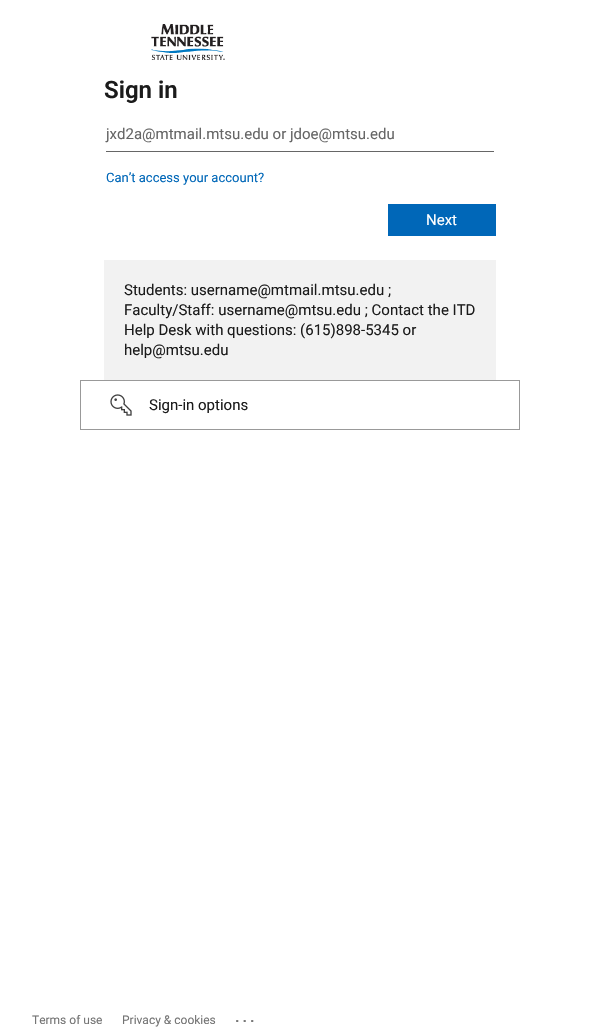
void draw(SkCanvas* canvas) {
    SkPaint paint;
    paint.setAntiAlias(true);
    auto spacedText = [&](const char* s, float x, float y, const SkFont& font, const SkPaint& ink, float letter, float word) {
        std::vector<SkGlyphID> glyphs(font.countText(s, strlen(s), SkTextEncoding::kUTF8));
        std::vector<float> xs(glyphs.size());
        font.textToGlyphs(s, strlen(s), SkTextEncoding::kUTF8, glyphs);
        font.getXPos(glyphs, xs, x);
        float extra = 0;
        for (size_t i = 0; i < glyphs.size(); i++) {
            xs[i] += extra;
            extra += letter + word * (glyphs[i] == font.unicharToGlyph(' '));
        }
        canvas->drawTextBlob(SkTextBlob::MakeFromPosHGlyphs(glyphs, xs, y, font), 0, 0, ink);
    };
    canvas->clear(0xFFFFFFFF);
    canvas->drawImageRect(SkImages::DeferredFromEncodedData(SkData::MakeFromFileName("img1.png")), SkRect::MakeXYWH(151, 24, 74, 36), SkSamplingOptions());
    SkFont font1(fontMgr->matchFamilyStyle("Roboto", SkFontStyle(600, SkFontStyle::kNormal_Width, SkFontStyle::kUpright_Slant)), 24);
    font1.setSubpixel(true);
    paint.setColor(0xFF1B1B1B);
    canvas->drawString("Sign in", 104, 98, font1, paint);
    paint.setColor(0xFF666666);
    canvas->drawRect(SkRect::MakeXYWH(106, 151, 388, 1), paint);
    SkFont font2(fontMgr->matchFamilyStyle("Roboto", SkFontStyle::Normal()), 15);
    font2.setSubpixel(true);
    canvas->drawString("jxd2a@mtmail.mtsu.edu or jdoe@mtsu.edu", 106, 139, font2, paint);
    SkFont font3(fontMgr->matchFamilyStyle("Roboto", SkFontStyle::Normal()), 13);
    font3.setSubpixel(true);
    paint.setColor(0xFF0067B8);
    canvas->drawString("Can’t access your account?", 106, 182, font3, paint);
    canvas->drawRect(SkRect::MakeXYWH(388, 204, 108, 32), paint);
    paint.setColor(0xFFFFFFFF);
    canvas->drawString("Next", 426, 225, font2, paint);
    paint.setColor(0xFFF2F2F2);
    canvas->drawRect(SkRect::MakeXYWH(104, 260, 392, 120), paint);
    paint.setColor(0xFF1B1B1B);
    canvas->drawString("Students: username@mtmail.mtsu.edu ;", 124, 295, font2, paint);
    canvas->drawString("Faculty/Staff: username@mtsu.edu ; Contact the ITD", 124, 315, font2, paint);
    canvas->drawString("Help Desk with questions: (615)898-5345 or", 124, 335, font2, paint);
    canvas->drawString("help@mtsu.edu", 124, 355, font2, paint);
    paint.setStyle(SkPaint::kStroke_Style);
    paint.setStrokeWidth(1);
    paint.setColor(0xFF999999);
    canvas->drawRect(SkRect::MakeXYWH(80.5f, 380.5f, 439, 49), paint);
    canvas->drawImageRect(SkImages::DeferredFromEncodedData(SkData::MakeFromFileName("img2.png")), SkRect::MakeXYWH(110, 394, 22, 22), SkSamplingOptions());
    paint.setStyle(SkPaint::kFill_Style);
    paint.setColor(0xFF1B1B1B);
    canvas->drawString("Sign-in options", 149, 410, font2, paint);
    SkFont font4(fontMgr->matchFamilyStyle("Roboto", SkFontStyle::Normal()), 12);
    font4.setSubpixel(true);
    paint.setColor(0xFF747474);
    canvas->drawString("Terms of use", 32, 1024, font4, paint);
    canvas->drawString("Privacy & cookies", 122, 1024, font4, paint);
    SkFont font5(fontMgr->matchFamilyStyle("Roboto", SkFontStyle(600, SkFontStyle::kNormal_Width, SkFontStyle::kUpright_Slant)), 16);
    font5.setSubpixel(true);
    spacedText("...", 235, 1022, font5, paint, 3, 0);
}
